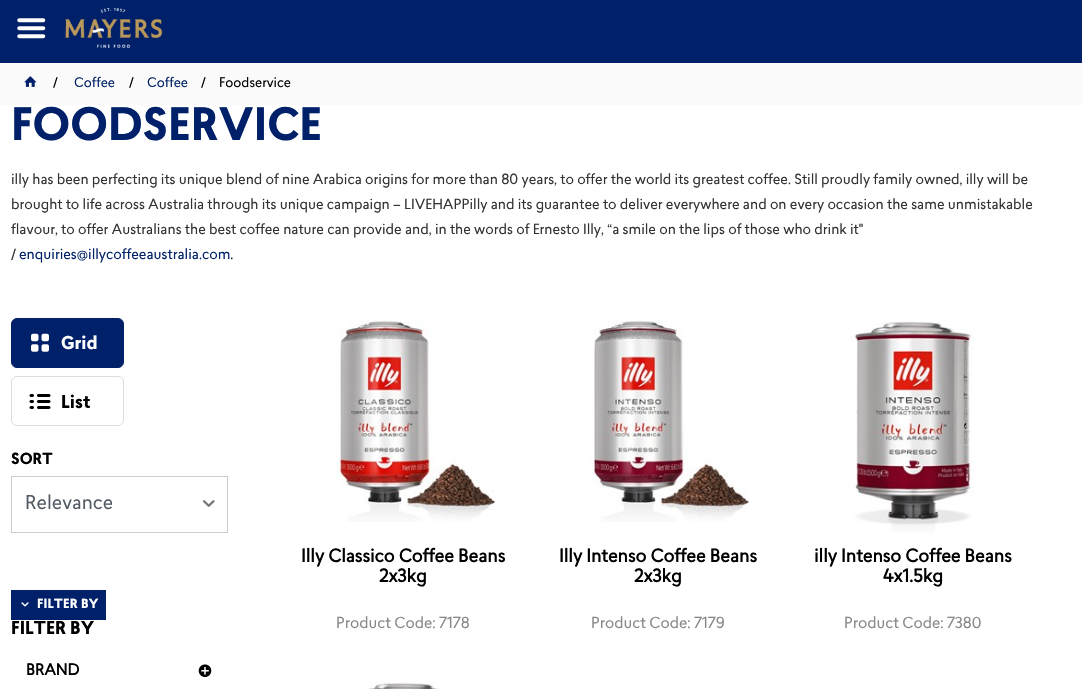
void draw(SkCanvas* canvas) {
    SkPaint paint;
    paint.setAntiAlias(true);
    auto spacedText = [&](const char* s, float x, float y, const SkFont& font, const SkPaint& ink, float letter, float word) {
        std::vector<SkGlyphID> glyphs(font.countText(s, strlen(s), SkTextEncoding::kUTF8));
        std::vector<float> xs(glyphs.size());
        font.textToGlyphs(s, strlen(s), SkTextEncoding::kUTF8, glyphs);
        font.getXPos(glyphs, xs, x);
        float extra = 0;
        for (size_t i = 0; i < glyphs.size(); i++) {
            xs[i] += extra;
            extra += letter + word * (glyphs[i] == font.unicharToGlyph(' '));
        }
        canvas->drawTextBlob(SkTextBlob::MakeFromPosHGlyphs(glyphs, xs, y, font), 0, 0, ink);
    };
    canvas->clear(0xFFFFFFFF);
    paint.setColor(0xFF002169);
    canvas->drawRect(SkRect::MakeXYWH(0, 0, 1082, 63), paint);
    canvas->drawImageRect(SkImages::DeferredFromEncodedData(SkData::MakeFromFileName("img1.png")), SkRect::MakeXYWH(17, 18, 29, 21), SkSamplingOptions());
    canvas->drawImageRect(SkImages::DeferredFromEncodedData(SkData::MakeFromFileName("img2.png")), SkRect::MakeXYWH(65, 7, 98, 41), SkSamplingOptions());
    paint.setColor(0xFFFAFAFA);
    canvas->drawRect(SkRect::MakeXYWH(0, 63, 1082, 42), paint);
    canvas->drawImageRect(SkImages::DeferredFromEncodedData(SkData::MakeFromFileName("img3.png")), SkRect::MakeXYWH(24, 76, 13, 11), SkSamplingOptions());
    SkFont font1(fontMgr->matchFamilyStyle("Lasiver", SkFontStyle::Normal()), 13);
    font1.setSubpixel(true);
    paint.setColor(0xFF000000);
    canvas->drawString("/", 53, 87, font1, paint);
    paint.setColor(0xFF002169);
    canvas->drawString("Coffee", 74, 87, font1, paint);
    paint.setColor(0xFF000000);
    canvas->drawString("/", 129, 87, font1, paint);
    paint.setColor(0xFF002169);
    canvas->drawString("Coffee", 147, 87, font1, paint);
    paint.setColor(0xFF000000);
    canvas->drawString("/", 201, 87, font1, paint);
    canvas->drawString("Foodservice", 219, 87, font1, paint);
    SkFont font2(fontMgr->matchFamilyStyle("Lasiver", SkFontStyle::Bold()), 43.75f);
    font2.setSubpixel(true);
    paint.setColor(0xFF002169);
    canvas->drawString("FOODSERVICE", 11, 140, font2, paint);
    SkFont font3(fontMgr->matchFamilyStyle("Lasiver", SkFontStyle::Normal()), 13.75f);
    font3.setSubpixel(true);
    paint.setColor(0xFF333333);
    canvas->drawString("illy has been perfecting its unique blend of nine Arabica origins for more than 80 years, to offer the world its greatest coffee. Still proudly family owned, illy will be", 11, 184, font3, paint);
    canvas->drawString("brought to life across Australia through its unique campaign – LIVEHAPPilly and its guarantee to deliver everywhere and on every occasion the same unmistakable", 11, 209, font3, paint);
    canvas->drawString("flavour, to offer Australians the best coffee nature can provide and, in the words of Ernesto Illy, “a smile on the lips of those who drink it\"", 11, 234, font3, paint);
    canvas->drawString("/", 11, 259, font3, paint);
    paint.setColor(0xFF002169);
    canvas->drawString("enquiries@illycoffeeaustralia.com.", 19, 259, font3, paint);
    canvas->drawRoundRect(SkRect::MakeXYWH(11.5f, 318.5f, 112, 49), 5.5f, 5.5f, paint);
    paint.setStyle(SkPaint::kStroke_Style);
    paint.setStrokeWidth(1);
    canvas->drawRoundRect(SkRect::MakeXYWH(11.5f, 318.5f, 112, 49), 5.5f, 5.5f, paint);
    canvas->drawImageRect(SkImages::DeferredFromEncodedData(SkData::MakeFromFileName("img4.png")), SkRect::MakeXYWH(31, 333, 18, 19), SkSamplingOptions());
    SkFont font4(fontMgr->matchFamilyStyle("Lasiver", SkFontStyle::Bold()), 17.5f);
    font4.setSubpixel(true);
    paint.setStyle(SkPaint::kFill_Style);
    paint.setColor(0xFFFFFFFF);
    canvas->drawString("Grid", 61, 349, font4, paint);
    paint.setStyle(SkPaint::kStroke_Style);
    paint.setColor(0xFFDDDDDD);
    canvas->drawRoundRect(SkRect::MakeXYWH(11.5f, 376.5f, 112, 49), 5.5f, 5.5f, paint);
    canvas->drawImageRect(SkImages::DeferredFromEncodedData(SkData::MakeFromFileName("img5.png")), SkRect::MakeXYWH(29, 394, 22, 15), SkSamplingOptions());
    paint.setStyle(SkPaint::kFill_Style);
    paint.setColor(0xFF000000);
    canvas->drawString("List", 61, 408, font4, paint);
    SkFont font5(fontMgr->matchFamilyStyle("Lasiver", SkFontStyle::Bold()), 15);
    font5.setSubpixel(true);
    canvas->drawString("SORT", 11, 464, font5, paint);
    paint.setStyle(SkPaint::kStroke_Style);
    paint.setColor(0xFFCCCCCC);
    canvas->drawRect(SkRect::MakeXYWH(11.5f, 476.5f, 216, 56), paint);
    SkFont font6(fontMgr->matchFamilyStyle("Lasiver", SkFontStyle::Normal()), 18.75f);
    font6.setSubpixel(true);
    paint.setStyle(SkPaint::kFill_Style);
    paint.setColor(0xFF535C65);
    canvas->drawString("Relevance", 25, 509, font6, paint);
    canvas->drawImageRect(SkImages::DeferredFromEncodedData(SkData::MakeFromFileName("img6.png")), SkRect::MakeXYWH(203, 500, 12, 7), SkSamplingOptions());
    paint.setColor(0xFF002169);
    canvas->drawRect(SkRect::MakeXYWH(11, 590, 95, 30), paint);
    canvas->drawImageRect(SkImages::DeferredFromEncodedData(SkData::MakeFromFileName("img7.png")), SkRect::MakeXYWH(21, 602, 8, 5), SkSamplingOptions());
    SkFont font7(fontMgr->matchFamilyStyle("Lasiver", SkFontStyle::Bold()), 12.5f);
    font7.setSubpixel(true);
    paint.setColor(0xFFFFFFFF);
    spacedText("FILTER BY", 37, 608, font7, paint, 0.25f, 0);
    paint.setColor(0xFF000000);
    canvas->drawString("FILTER BY", 11, 634, font4, paint);
    SkFont font8(fontMgr->matchFamilyStyle("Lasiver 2", SkFontStyle::Bold()), 15);
    font8.setSubpixel(true);
    canvas->drawString("BRAND", 26, 675, font8, paint);
    canvas->drawImageRect(SkImages::DeferredFromEncodedData(SkData::MakeFromFileName("img8.png")), SkRect::MakeXYWH(198, 664, 14, 13), SkSamplingOptions());
    canvas->drawImageRect(SkImages::DeferredFromEncodedData(SkData::MakeFromFileName("img9.png")), SkRect::MakeXYWH(335, 320, 160, 202), SkSamplingOptions());
    SkFont font9(fontMgr->matchFamilyStyle("Lasiver 2", SkFontStyle::Bold()), 17.5f);
    font9.setSubpixel(true);
    canvas->drawString("Illy Classico Coffee Beans", 301, 562, font9, paint);
    canvas->drawString("2x3kg", 379, 582, font9, paint);
    SkFont font10(fontMgr->matchFamilyStyle("Lasiver", SkFontStyle::Normal()), 15);
    font10.setSubpixel(true);
    paint.setColor(0xFF888888);
    canvas->drawString("Product Code: 7178", 336, 628, font10, paint);
    canvas->drawImageRect(SkImages::DeferredFromEncodedData(SkData::MakeFromFileName("img10.png")), SkRect::MakeXYWH(588, 320, 161, 202), SkSamplingOptions());
    paint.setColor(0xFF000000);
    canvas->drawString("Illy Intenso Coffee Beans", 559, 562, font9, paint);
    canvas->drawString("2x3kg", 634, 582, font9, paint);
    paint.setColor(0xFF888888);
    canvas->drawString("Product Code: 7179", 591, 628, font10, paint);
    canvas->drawImageRect(SkImages::DeferredFromEncodedData(SkData::MakeFromFileName("img11.png")), SkRect::MakeXYWH(849, 321, 125, 212), SkSamplingOptions());
    paint.setColor(0xFF000000);
    canvas->drawString("illy Intenso Coffee Beans", 814, 562, font9, paint);
    canvas->drawString("4x1.5kg", 883, 582, font9, paint);
    paint.setColor(0xFF888888);
    canvas->drawString("Product Code: 7380", 844, 628, font10, paint);
    canvas->drawImageRect(SkImages::DeferredFromEncodedData(SkData::MakeFromFileName("img12.png")), SkRect::MakeXYWH(368, 681, 71, 8), SkSamplingOptions());
}
